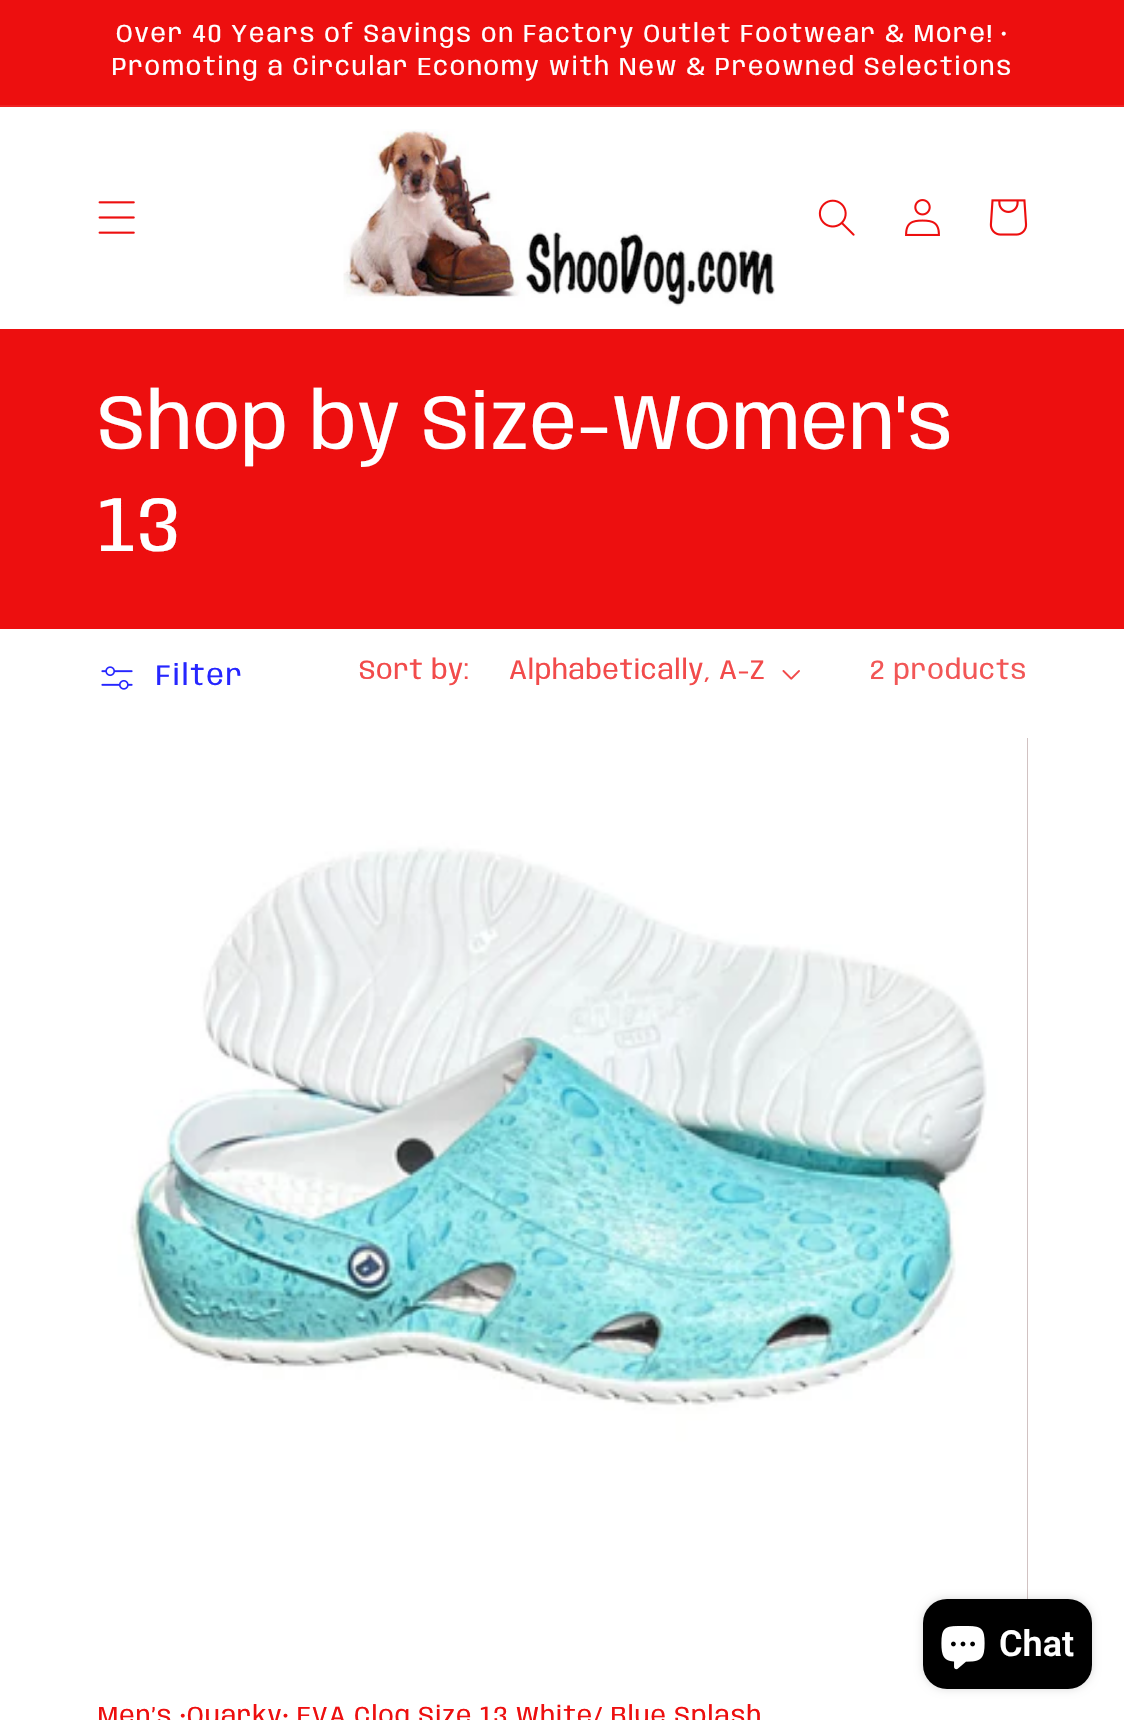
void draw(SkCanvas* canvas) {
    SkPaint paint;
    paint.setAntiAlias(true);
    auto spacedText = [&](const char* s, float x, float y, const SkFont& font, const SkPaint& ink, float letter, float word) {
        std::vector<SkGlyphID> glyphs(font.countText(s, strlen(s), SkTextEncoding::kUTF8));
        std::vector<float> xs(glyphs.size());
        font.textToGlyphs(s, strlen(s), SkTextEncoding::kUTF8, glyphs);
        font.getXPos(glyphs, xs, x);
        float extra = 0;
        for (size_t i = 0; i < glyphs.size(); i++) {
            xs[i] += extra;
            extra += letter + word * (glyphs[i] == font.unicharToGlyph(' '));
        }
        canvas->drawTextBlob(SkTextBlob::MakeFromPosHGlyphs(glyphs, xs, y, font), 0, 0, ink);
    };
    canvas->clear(0xFFFFFFFF);
    paint.setColor(0xFFED0F0F);
    canvas->drawRect(SkRect::MakeXYWH(0, 0, 1124, 105), paint);
    paint.setColor(0xFFEE2222);
    canvas->drawRect(SkRect::MakeXYWH(0, 105, 1124, 2), paint);
    SkFont font1(fontMgr->matchFamilyStyle("Anybody", SkFontStyle::Normal()), 25.35f);
    font1.setSubpixel(true);
    paint.setColor(0xFFFFFFFF);
    spacedText("Over 40 Years of Savings on Factory Outlet Footwear & More!", 116, 42, font1, paint, 1.95f, 0);
    spacedText("•", 1001, 42, font1, paint, 1.95f, 0);
    spacedText("Promoting a Circular Economy with New & Preowned Selections", 112, 75, font1, paint, 1.95f, 0);
    canvas->drawImageRect(SkImages::DeferredFromEncodedData(SkData::MakeFromFileName("img1.png")), SkRect::MakeXYWH(98, 201, 37, 33), SkSamplingOptions());
    canvas->drawImageRect(SkImages::DeferredFromEncodedData(SkData::MakeFromFileName("img2.png")), SkRect::MakeXYWH(343, 129, 432, 178), SkSamplingOptions());
    canvas->drawImageRect(SkImages::DeferredFromEncodedData(SkData::MakeFromFileName("img3.png")), SkRect::MakeXYWH(818, 199, 37, 37), SkSamplingOptions());
    canvas->drawImageRect(SkImages::DeferredFromEncodedData(SkData::MakeFromFileName("img4.png")), SkRect::MakeXYWH(905, 199, 35, 37), SkSamplingOptions());
    canvas->drawImageRect(SkImages::DeferredFromEncodedData(SkData::MakeFromFileName("img5.png")), SkRect::MakeXYWH(989, 199, 39, 37), SkSamplingOptions());
    paint.setColor(0xFFED0F0F);
    canvas->drawRect(SkRect::MakeXYWH(0, 329, 1124, 300), paint);
    SkFont font2(fontMgr->matchFamilyStyle("Anybody", SkFontStyle::Normal()), 78);
    font2.setSubpixel(true);
    paint.setColor(0xFFFFFFFF);
    spacedText("Shop by Size-Women's", 98, 449, font2, paint, 1.15f, 0);
    spacedText("13", 98, 551, font2, paint, 1.15f, 0);
    canvas->drawImageRect(SkImages::DeferredFromEncodedData(SkData::MakeFromFileName("img6.png")), SkRect::MakeXYWH(101, 666, 32, 24), SkSamplingOptions());
    SkFont font3(fontMgr->matchFamilyStyle("Anybody", SkFontStyle::Normal()), 29);
    font3.setSubpixel(true);
    paint.setColor(0xFF2626FF);
    spacedText("Filter", 156, 685, font3, paint, 1.95f, 0);
    SkFont font4(fontMgr->matchFamilyStyle("Anybody", SkFontStyle::Normal()), 27.25f);
    font4.setSubpixel(true);
    paint.setColor(0xFFF24B4B);
    spacedText("Sort by:", 359, 679, font4, paint, 0.75f, 0);
    spacedText("Alphabetically, A-Z", 509, 679, font4, paint, 0.75f, 0);
    canvas->drawImageRect(SkImages::DeferredFromEncodedData(SkData::MakeFromFileName("img7.png")), SkRect::MakeXYWH(782, 670, 18, 10), SkSamplingOptions());
    paint.setColor(0xFFF25757);
    spacedText("2 products", 870, 679, font4, paint, 1.15f, 0);
    paint.setColor(0xFFC2AEAE);
    canvas->drawRect(SkRect::MakeXYWH(1027, 738, 1, 861), paint);
    canvas->drawImageRect(SkImages::DeferredFromEncodedData(SkData::MakeFromFileName("img8.png")), SkRect::MakeXYWH(98, 738, 930, 930), SkSamplingOptions());
    paint.setColor(0xFFED0F0F);
    spacedText("Men’s •Quarky• EVA Clog Size 13 White/ Blue Splash", 98, 1724, font1, paint, 1.15f, 0);
    paint.setColor(0x26000000);
    paint.setMaskFilter(SkMaskFilter::MakeBlur(kNormal_SkBlurStyle, 4));
    canvas->drawRoundRect(SkRect::MakeXYWH(923, 1599, 169, 90), 24, 24, paint);
    paint.setMaskFilter(nullptr);
    paint.setColor(0xFF000000);
    canvas->drawRoundRect(SkRect::MakeXYWH(923, 1599, 169, 90), 24, 24, paint);
    canvas->drawImageRect(SkImages::DeferredFromEncodedData(SkData::MakeFromFileName("img9.png")), SkRect::MakeXYWH(941, 1626, 44, 44), SkSamplingOptions());
    SkFont font5(fontMgr->matchFamilyStyle("Roboto", SkFontStyle(600, SkFontStyle::kNormal_Width, SkFontStyle::kUpright_Slant)), 36);
    font5.setSubpixel(true);
    paint.setColor(0xFFFFFFFF);
    canvas->drawString("Chat", 999, 1656, font5, paint);
}
